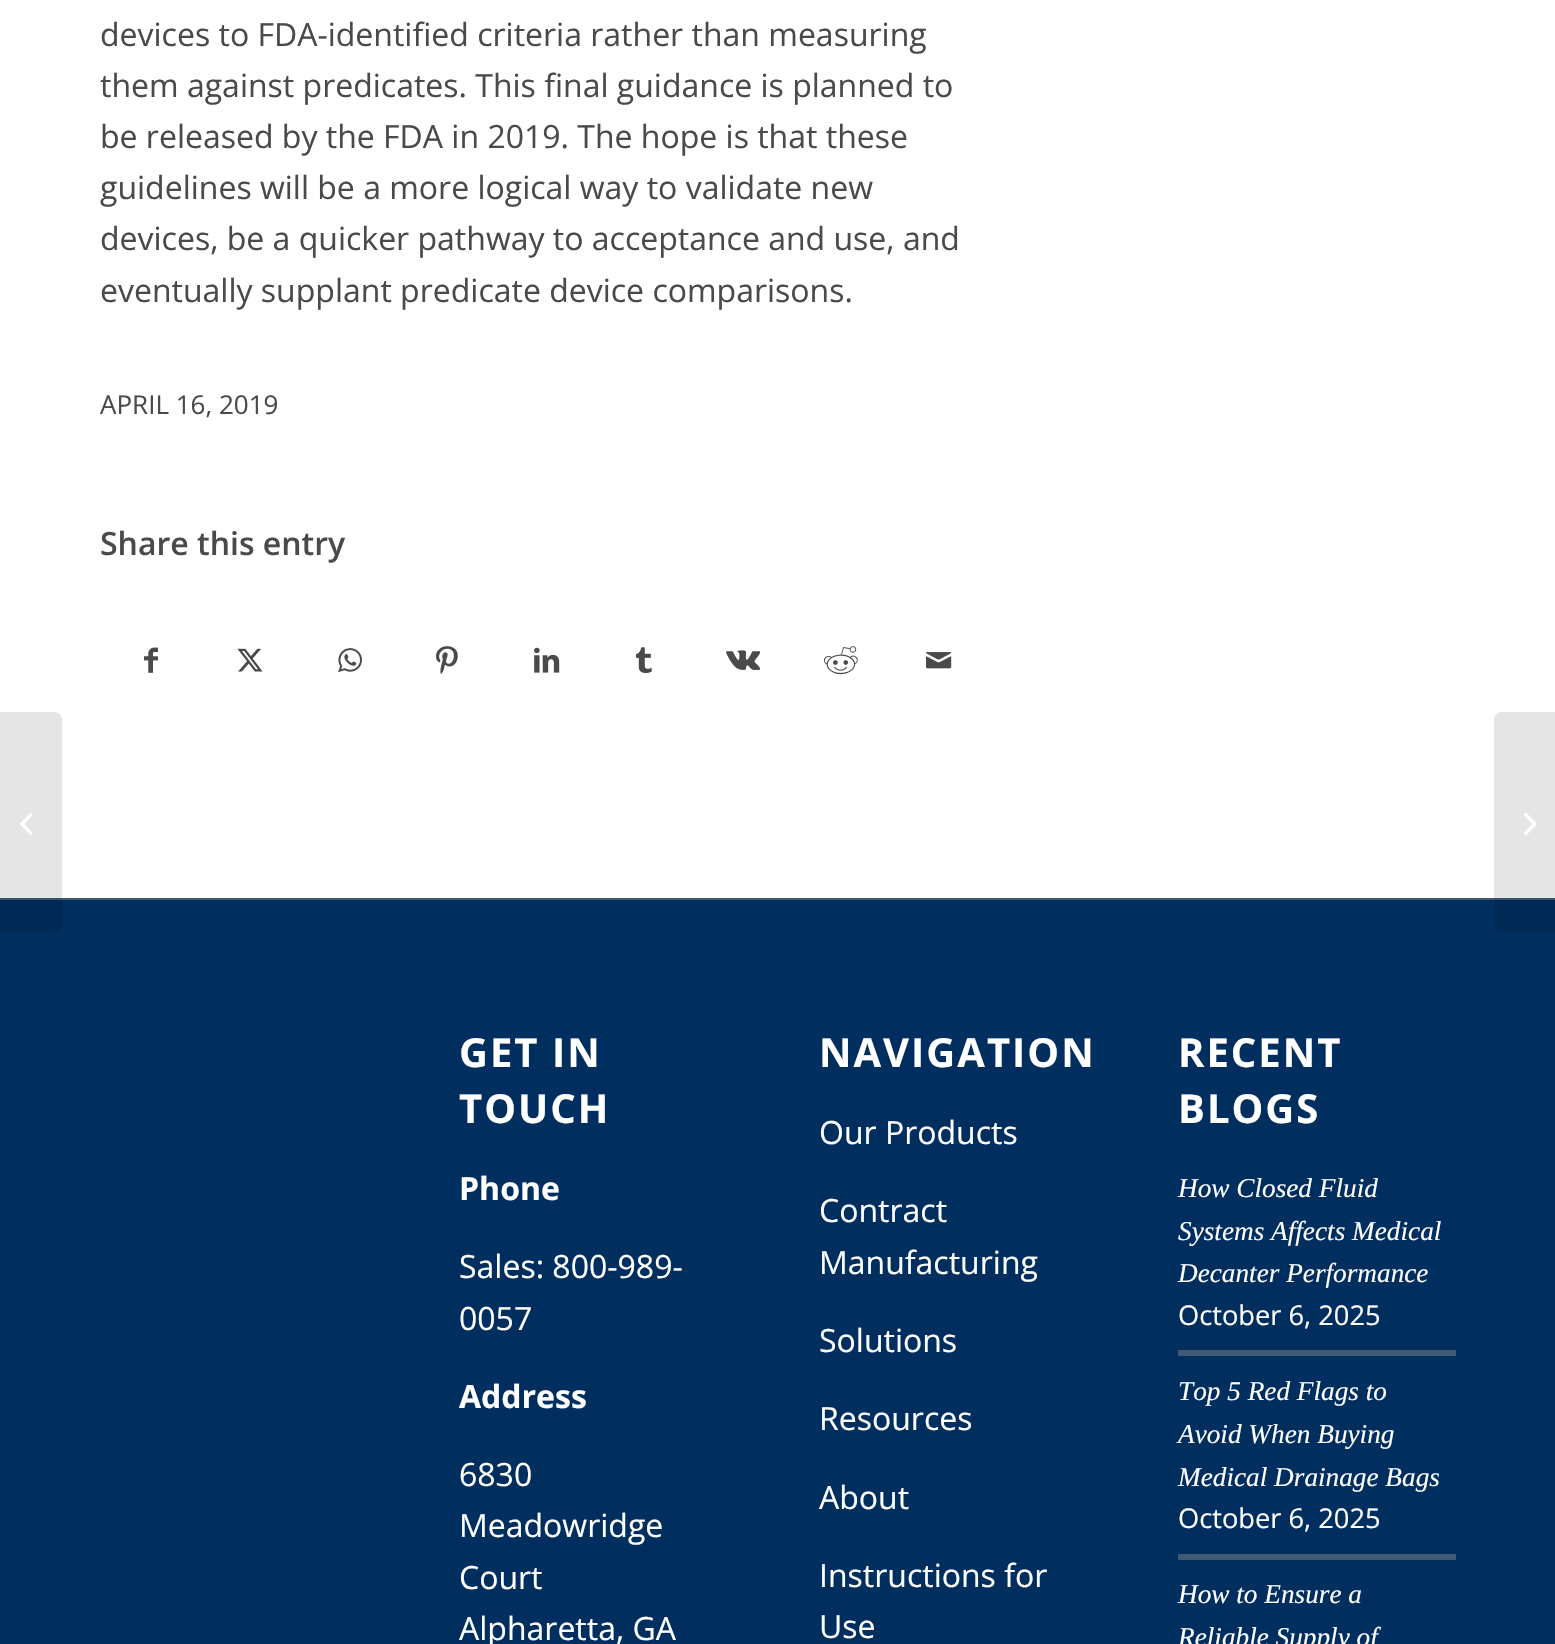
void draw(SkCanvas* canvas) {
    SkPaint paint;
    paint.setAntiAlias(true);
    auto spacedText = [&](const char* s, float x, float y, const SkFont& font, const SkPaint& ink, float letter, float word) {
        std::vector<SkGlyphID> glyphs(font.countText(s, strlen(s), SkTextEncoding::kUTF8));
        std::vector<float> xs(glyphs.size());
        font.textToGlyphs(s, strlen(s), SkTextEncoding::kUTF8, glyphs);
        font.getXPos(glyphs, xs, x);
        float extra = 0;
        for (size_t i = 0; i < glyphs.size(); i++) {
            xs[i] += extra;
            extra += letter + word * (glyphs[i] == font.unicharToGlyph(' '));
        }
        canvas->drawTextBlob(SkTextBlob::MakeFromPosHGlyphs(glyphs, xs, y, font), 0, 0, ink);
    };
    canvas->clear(0xFFFFFFFF);
    paint.setColor(0xFF002E5F);
    canvas->drawRect(SkRect::MakeXYWH(0, 900, 1555, 744), paint);
    paint.setColor(0xFF415A73);
    canvas->drawRect(SkRect::MakeXYWH(0, 898, 1555, 2), paint);
    paint.setColor(0x1A000000);
    canvas->drawPath(SkPathBuilder().moveTo(0, 712).lineTo(54, 712).cubicTo(58.5f, 712, 62, 715.5f, 62, 720).lineTo(62, 924).cubicTo(62, 928.5f, 58.5f, 932, 54, 932).lineTo(0, 932).close().detach(), paint);
    canvas->drawImageRect(SkImages::DeferredFromEncodedData(SkData::MakeFromFileName("img1.png")), SkRect::MakeXYWH(20, 813, 12, 22), SkSamplingOptions());
    SkFont font1(fontMgr->matchFamilyStyle("Open Sans", SkFontStyle::Normal()), 32);
    font1.setSubpixel(true);
    paint.setColor(0xFF4A4A4A);
    canvas->drawString("devices to FDA-identified criteria rather than measuring", 100, 46, font1, paint);
    canvas->drawString("them against predicates. This final guidance is planned to", 100, 97, font1, paint);
    canvas->drawString("be released by the FDA in 2019. The hope is that these", 100, 148, font1, paint);
    canvas->drawString("guidelines will be a more logical way to validate new", 100, 199, font1, paint);
    canvas->drawString("devices, be a quicker pathway to acceptance and use, and", 100, 250, font1, paint);
    canvas->drawString("eventually supplant predicate device comparisons.", 100, 302, font1, paint);
    SkFont font2(fontMgr->matchFamilyStyle("Open Sans", SkFontStyle::Normal()), 26);
    font2.setSubpixel(true);
    canvas->drawString("APRIL 16, 2019", 100, 414, font2, paint);
    SkFont font3(fontMgr->matchFamilyStyle("Open Sans", SkFontStyle(600, SkFontStyle::kNormal_Width, SkFontStyle::kUpright_Slant)), 32);
    font3.setSubpixel(true);
    canvas->drawString("Share this entry", 100, 555, font3, paint);
    canvas->drawImageRect(SkImages::DeferredFromEncodedData(SkData::MakeFromFileName("img2.png")), SkRect::MakeXYWH(144, 647, 14, 26), SkSamplingOptions());
    canvas->drawImageRect(SkImages::DeferredFromEncodedData(SkData::MakeFromFileName("img3.png")), SkRect::MakeXYWH(237, 648, 26, 24), SkSamplingOptions());
    canvas->drawImageRect(SkImages::DeferredFromEncodedData(SkData::MakeFromFileName("img4.png")), SkRect::MakeXYWH(338, 648, 24, 25), SkSamplingOptions());
    canvas->drawImageRect(SkImages::DeferredFromEncodedData(SkData::MakeFromFileName("img5.png")), SkRect::MakeXYWH(436, 646, 22, 29), SkSamplingOptions());
    canvas->drawImageRect(SkImages::DeferredFromEncodedData(SkData::MakeFromFileName("img6.png")), SkRect::MakeXYWH(534, 647, 26, 26), SkSamplingOptions());
    canvas->drawImageRect(SkImages::DeferredFromEncodedData(SkData::MakeFromFileName("img7.png")), SkRect::MakeXYWH(636, 647, 16, 27), SkSamplingOptions());
    canvas->drawImageRect(SkImages::DeferredFromEncodedData(SkData::MakeFromFileName("img8.png")), SkRect::MakeXYWH(726, 650, 35, 20), SkSamplingOptions());
    canvas->drawImageRect(SkImages::DeferredFromEncodedData(SkData::MakeFromFileName("img9.png")), SkRect::MakeXYWH(824, 646, 34, 29), SkSamplingOptions());
    canvas->drawImageRect(SkImages::DeferredFromEncodedData(SkData::MakeFromFileName("img10.png")), SkRect::MakeXYWH(926, 652, 26, 17), SkSamplingOptions());
    SkFont font4(fontMgr->matchFamilyStyle("Open Sans", SkFontStyle::Bold()), 40);
    font4.setSubpixel(true);
    paint.setColor(0xFFFFFFFF);
    spacedText("GET IN", 459, 1067, font4, paint, 2, 0);
    spacedText("TOUCH", 459, 1123, font4, paint, 2, 0);
    SkFont font5(fontMgr->matchFamilyStyle("Open Sans", SkFontStyle::Bold()), 32);
    font5.setSubpixel(true);
    canvas->drawString("Phone", 459, 1200, font5, paint);
    canvas->drawString("Sales: 800-989-", 459, 1278, font1, paint);
    canvas->drawString("0057", 459, 1330, font1, paint);
    canvas->drawString("Address", 459, 1408, font5, paint);
    canvas->drawString("6830", 459, 1486, font1, paint);
    canvas->drawString("Meadowridge", 459, 1537, font1, paint);
    canvas->drawString("Court", 459, 1589, font1, paint);
    canvas->drawString("Alpharetta, GA", 459, 1640, font1, paint);
    spacedText("NAVIGATION", 819, 1067, font4, paint, 2, 0);
    canvas->drawString("Our Products", 819, 1144, font1, paint);
    canvas->drawString("Contract", 819, 1222, font1, paint);
    canvas->drawString("Manufacturing", 819, 1274, font1, paint);
    canvas->drawString("Solutions", 819, 1352, font1, paint);
    canvas->drawString("Resources", 819, 1430, font1, paint);
    canvas->drawString("About", 819, 1509, font1, paint);
    canvas->drawString("Instructions for", 819, 1587, font1, paint);
    canvas->drawString("Use", 819, 1638, font1, paint);
    spacedText("RECENT", 1178, 1067, font4, paint, 2, 0);
    spacedText("BLOGS", 1178, 1123, font4, paint, 2, 0);
    SkFont font6(fontMgr->matchFamilyStyle("Liberation Serif", SkFontStyle::Italic()), 27.25f);
    font6.setSubpixel(true);
    canvas->drawString("How Closed Fluid", 1178, 1197, font6, paint);
    canvas->drawString("Systems Affects Medical", 1178, 1240, font6, paint);
    canvas->drawString("Decanter Performance", 1178, 1282, font6, paint);
    SkFont font7(fontMgr->matchFamilyStyle("Open Sans", SkFontStyle::Normal()), 27.25f);
    font7.setSubpixel(true);
    canvas->drawString("October 6, 2025", 1178, 1325, font7, paint);
    paint.setColor(0xFF415A73);
    canvas->drawRect(SkRect::MakeXYWH(1178, 1350, 278, 6), paint);
    paint.setColor(0xFFFFFFFF);
    canvas->drawString("Top 5 Red Flags to", 1178, 1400, font6, paint);
    canvas->drawString("Avoid When Buying", 1178, 1443, font6, paint);
    canvas->drawString("Medical Drainage Bags", 1178, 1486, font6, paint);
    canvas->drawString("October 6, 2025", 1178, 1528, font7, paint);
    paint.setColor(0xFF415A73);
    canvas->drawRect(SkRect::MakeXYWH(1178, 1554, 278, 6), paint);
    paint.setColor(0xFFFFFFFF);
    canvas->drawString("How to Ensure a", 1178, 1603, font6, paint);
    canvas->drawString("Reliable Supply of", 1178, 1646, font6, paint);
    paint.setColor(0x1A000000);
    canvas->drawPath(SkPathBuilder().moveTo(1502, 712).lineTo(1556, 712).lineTo(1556, 932).lineTo(1502, 932).cubicTo(1497.5f, 932, 1494, 928.5f, 1494, 924).lineTo(1494, 720).cubicTo(1494, 715.5f, 1497.5f, 712, 1502, 712).close().detach(), paint);
    canvas->drawImageRect(SkImages::DeferredFromEncodedData(SkData::MakeFromFileName("img11.png")), SkRect::MakeXYWH(1524, 813, 12, 22), SkSamplingOptions());
}
